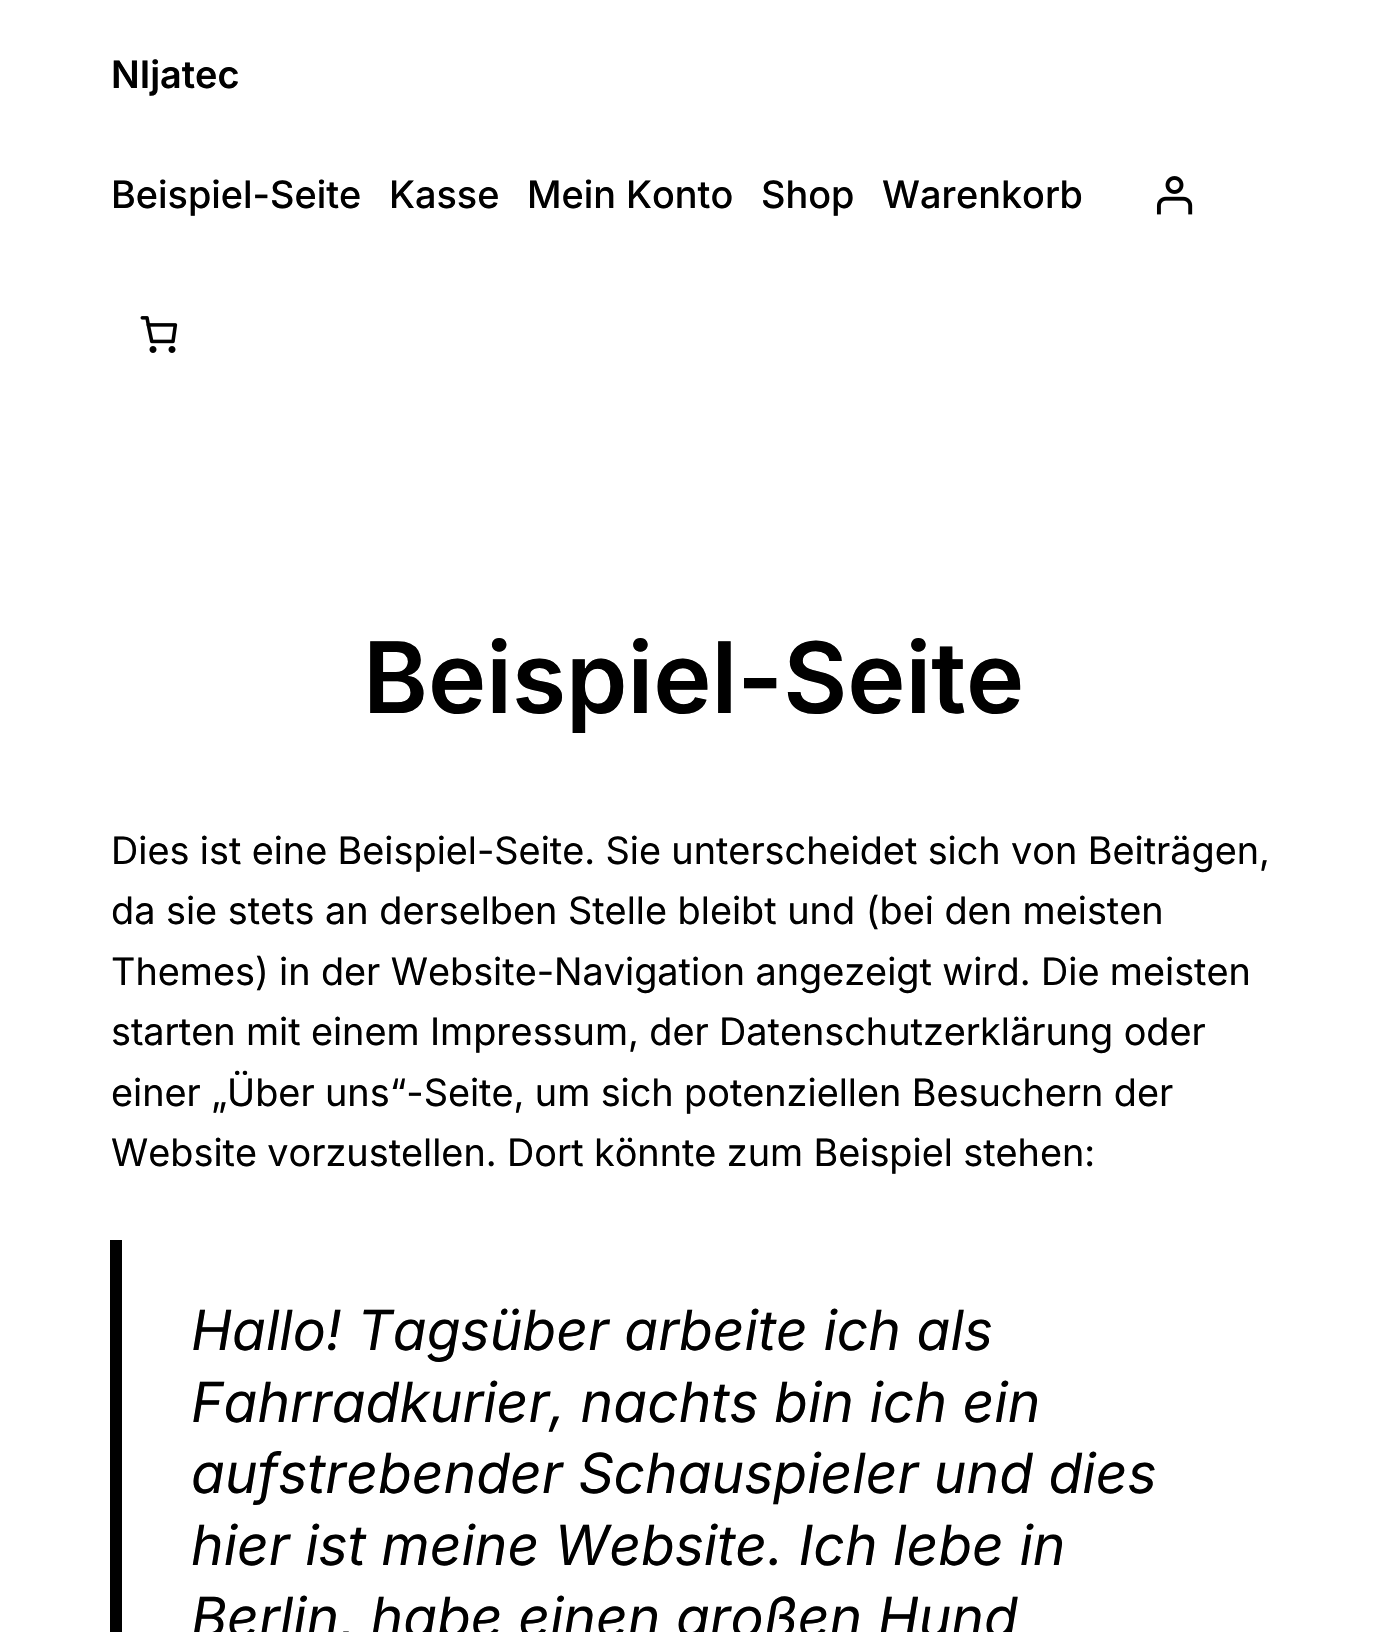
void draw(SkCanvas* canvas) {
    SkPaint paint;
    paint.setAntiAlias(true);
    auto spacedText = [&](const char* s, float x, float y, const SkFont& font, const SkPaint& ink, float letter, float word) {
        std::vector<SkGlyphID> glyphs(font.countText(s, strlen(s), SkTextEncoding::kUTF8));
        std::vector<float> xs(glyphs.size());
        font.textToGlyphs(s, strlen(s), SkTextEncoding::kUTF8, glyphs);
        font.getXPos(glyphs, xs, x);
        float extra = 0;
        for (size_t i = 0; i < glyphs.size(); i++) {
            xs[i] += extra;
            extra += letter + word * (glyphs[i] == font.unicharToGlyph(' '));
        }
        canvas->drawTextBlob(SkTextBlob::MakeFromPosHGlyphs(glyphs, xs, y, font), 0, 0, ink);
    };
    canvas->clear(0xFFFFFFFF);
    SkFont font1(fontMgr->matchFamilyStyle("Inter", SkFontStyle(600, SkFontStyle::kNormal_Width, SkFontStyle::kUpright_Slant)), 37.8f);
    font1.setSubpixel(true);
    paint.setColor(0xFF000000);
    canvas->drawString("NIjatec", 111, 88, font1, paint);
    SkFont font2(fontMgr->matchFamilyStyle("Inter", SkFontStyle(500, SkFontStyle::kNormal_Width, SkFontStyle::kUpright_Slant)), 37.8f);
    font2.setSubpixel(true);
    canvas->drawString("Beispiel-Seite", 111, 208, font2, paint);
    canvas->drawString("Kasse", 389, 208, font2, paint);
    canvas->drawString("Mein Konto", 527, 208, font2, paint);
    canvas->drawString("Shop", 761, 208, font2, paint);
    canvas->drawString("Warenkorb", 882, 208, font2, paint);
    canvas->drawImageRect(SkImages::DeferredFromEncodedData(SkData::MakeFromFileName("img1.png")), SkRect::MakeXYWH(1156, 176, 37, 39), SkSamplingOptions());
    canvas->drawImageRect(SkImages::DeferredFromEncodedData(SkData::MakeFromFileName("img2.png")), SkRect::MakeXYWH(140, 316, 38, 37), SkSamplingOptions());
    SkFont font3(fontMgr->matchFamilyStyle("Inter", SkFontStyle(600, SkFontStyle::kNormal_Width, SkFontStyle::kUpright_Slant)), 98.5f);
    font3.setSubpixel(true);
    canvas->drawString("Beispiel-Seite", 363, 713, font3, paint);
    SkFont font4(fontMgr->matchFamilyStyle("Inter", SkFontStyle::Normal()), 37.8f);
    font4.setSubpixel(true);
    spacedText("Dies ist eine Beispiel-Seite. Sie unterscheidet sich von Beiträgen,", 111, 864, font4, paint, 0, -0.25f);
    canvas->drawString("da sie stets an derselben Stelle bleibt und (bei den meisten", 111, 924, font4, paint);
    spacedText("Themes) in der Website-Navigation angezeigt wird. Die meisten", 111, 985, font4, paint, 0, -0.25f);
    spacedText("starten mit einem Impressum, der Datenschutzerklärung oder", 111, 1045, font4, paint, 0, -0.25f);
    spacedText("einer „Über uns“-Seite, um sich potenziellen Besuchern der", 111, 1106, font4, paint, 0, -0.25f);
    spacedText("Website vorzustellen. Dort könnte zum Beispiel stehen:", 111, 1166, font4, paint, 0, -0.25f);
    canvas->drawRect(SkRect::MakeXYWH(110, 1240, 12, 392), paint);
    SkFont font5(fontMgr->matchFamilyStyle("Inter", SkFontStyle::Italic()), 55.2f);
    font5.setSubpixel(true);
    canvas->drawString("Hallo! Tagsüber arbeite ich als", 191, 1350, font5, paint);
    canvas->drawString("Fahrradkurier, nachts bin ich ein", 191, 1422, font5, paint);
    canvas->drawString("aufstrebender Schauspieler und dies", 191, 1493, font5, paint);
    canvas->drawString("hier ist meine Website. Ich lebe in", 191, 1565, font5, paint);
    canvas->drawString("Berlin, habe einen großen Hund", 191, 1637, font5, paint);
}
